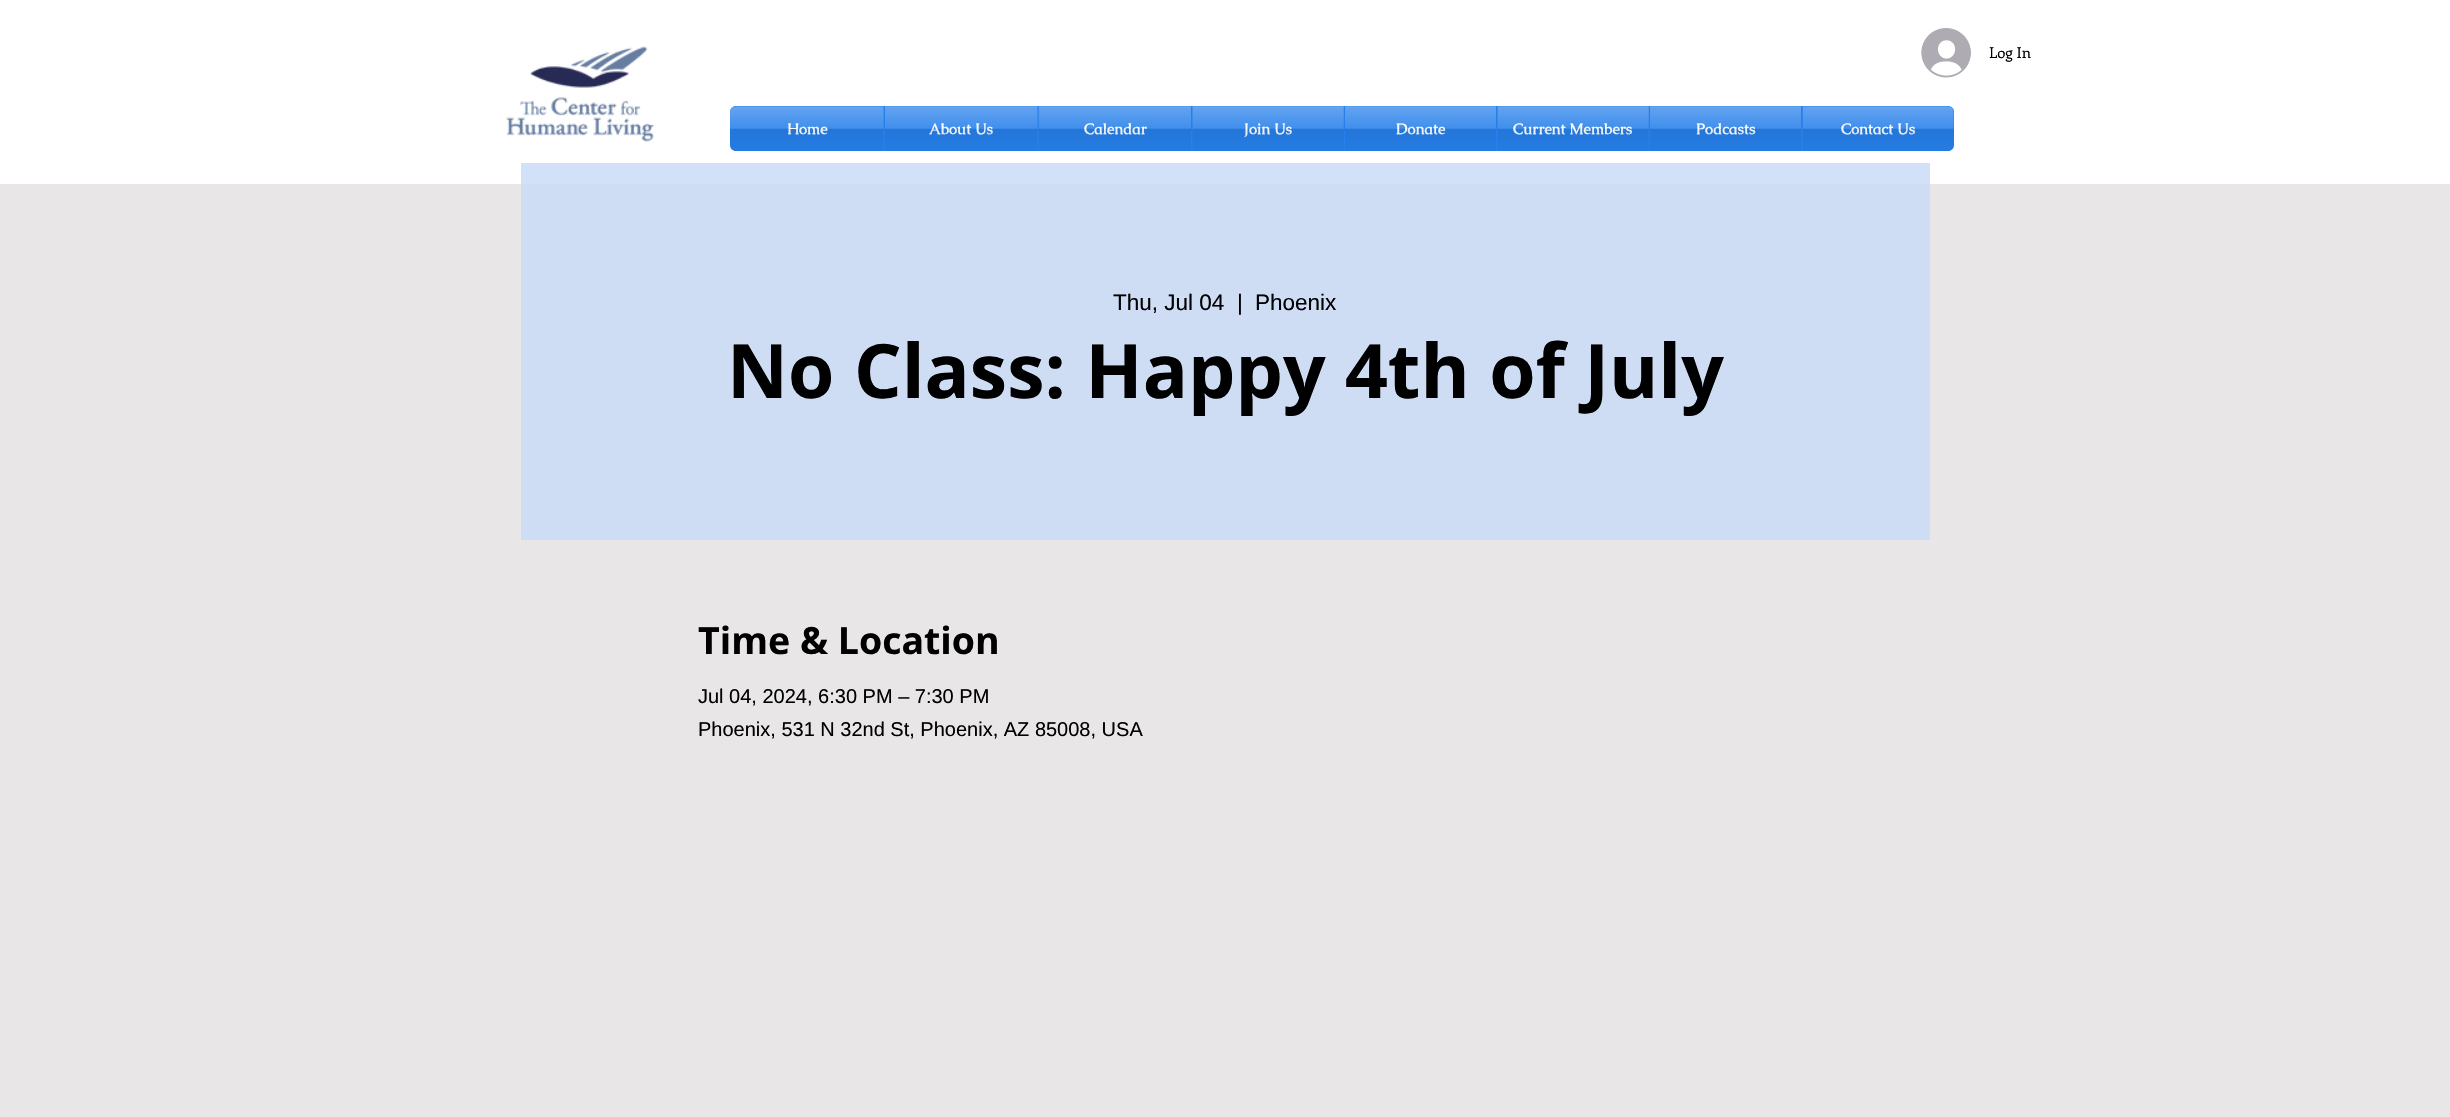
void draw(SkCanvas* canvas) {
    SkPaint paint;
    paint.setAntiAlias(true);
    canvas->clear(0xFFFFFFFF);
    canvas->drawImageRect(SkImages::DeferredFromEncodedData(SkData::MakeFromFileName("img1.png")), SkRect::MakeXYWH(506, 46, 148, 96), SkSamplingOptions());
    canvas->drawImageRect(SkImages::DeferredFromEncodedData(SkData::MakeFromFileName("img2.png")), SkRect::MakeXYWH(1921, 28, 50, 50), SkSamplingOptions());
    SkFont font1(fontMgr->matchFamilyStyle("Enriqueta", SkFontStyle::Normal()), 15);
    font1.setSubpixel(true);
    paint.setColor(0xFF000000);
    canvas->drawString("Log In", 1989, 58, font1, paint);
    canvas->drawImageRect(SkImages::DeferredFromEncodedData(SkData::MakeFromFileName("img3.png")), SkRect::MakeXYWH(730, 106, 1224, 45), SkSamplingOptions());
    paint.setColor(0xFF267FEA);
    canvas->drawPath(SkPathBuilder().moveTo(736, 106).lineTo(884, 106).lineTo(884, 151).lineTo(736, 151).cubicTo(732.5f, 151, 730, 148.5f, 730, 145).lineTo(730, 112).cubicTo(730, 108.5f, 732.5f, 106, 736, 106).close().detach(), paint);
    SkFont font2(fontMgr->matchFamilyStyle("Caudex", SkFontStyle::Bold()), 15);
    font2.setSubpixel(true);
    paint.setColor(0xFFFFFFFF);
    canvas->drawString("Home", 787, 134, font2, paint);
    canvas->drawImageRect(SkImages::DeferredFromEncodedData(SkData::MakeFromFileName("img4.png")), SkRect::MakeXYWH(730, 106, 154, 45), SkSamplingOptions());
    paint.setColor(0xFF267FEA);
    canvas->drawRect(SkRect::MakeXYWH(884, 106, 917, 45), paint);
    paint.setColor(0xFFFFFFFF);
    canvas->drawString("About Us", 929, 134, font2, paint);
    canvas->drawImageRect(SkImages::DeferredFromEncodedData(SkData::MakeFromFileName("img5.png")), SkRect::MakeXYWH(885, 106, 153, 45), SkSamplingOptions());
    canvas->drawString("Calendar", 1084, 134, font2, paint);
    canvas->drawImageRect(SkImages::DeferredFromEncodedData(SkData::MakeFromFileName("img6.png")), SkRect::MakeXYWH(1038, 106, 153, 45), SkSamplingOptions());
    canvas->drawString("Join Us", 1244, 134, font2, paint);
    canvas->drawImageRect(SkImages::DeferredFromEncodedData(SkData::MakeFromFileName("img7.png")), SkRect::MakeXYWH(1192, 106, 152, 45), SkSamplingOptions());
    canvas->drawString("Donate", 1396, 134, font2, paint);
    canvas->drawImageRect(SkImages::DeferredFromEncodedData(SkData::MakeFromFileName("img8.png")), SkRect::MakeXYWH(1345, 106, 151, 45), SkSamplingOptions());
    canvas->drawString("Current Members", 1513, 134, font2, paint);
    canvas->drawImageRect(SkImages::DeferredFromEncodedData(SkData::MakeFromFileName("img9.png")), SkRect::MakeXYWH(1497, 106, 152, 45), SkSamplingOptions());
    canvas->drawString("Podcasts", 1696, 134, font2, paint);
    canvas->drawImageRect(SkImages::DeferredFromEncodedData(SkData::MakeFromFileName("img10.png")), SkRect::MakeXYWH(1650, 106, 151, 45), SkSamplingOptions());
    paint.setColor(0xFF267FEA);
    canvas->drawPath(SkPathBuilder().moveTo(1801, 106).lineTo(1948, 106).cubicTo(1951.5f, 106, 1954, 108.5f, 1954, 112).lineTo(1954, 145).cubicTo(1954, 148.5f, 1951.5f, 151, 1948, 151).lineTo(1801, 151).close().detach(), paint);
    paint.setColor(0xFFFFFFFF);
    canvas->drawString("Contact Us", 1841, 134, font2, paint);
    canvas->drawImageRect(SkImages::DeferredFromEncodedData(SkData::MakeFromFileName("img11.png")), SkRect::MakeXYWH(1802, 106, 152, 45), SkSamplingOptions());
    paint.setColor(0xFFE8E6E6);
    canvas->drawRect(SkRect::MakeXYWH(0, 184, 2450, 933), paint);
    paint.setColor(0xD1C9DAF6);
    canvas->drawRect(SkRect::MakeXYWH(521, 163, 1409, 377), paint);
    SkFont font3(fontMgr->matchFamilyStyle("Liberation Sans", SkFontStyle::Normal()), 22.5f);
    font3.setSubpixel(true);
    paint.setColor(0xFF000000);
    canvas->drawString("Thu, Jul 04", 1113, 310, font3, paint);
    canvas->drawString("|", 1237, 310, font3, paint);
    canvas->drawString("Phoenix", 1255, 310, font3, paint);
    SkFont font4(fontMgr->matchFamilyStyle("Open Sans", SkFontStyle::Bold()), 75);
    font4.setSubpixel(true);
    canvas->drawString("No Class: Happy 4th of July", 727, 398, font4, paint);
    SkFont font5(fontMgr->matchFamilyStyle("Open Sans", SkFontStyle::Bold()), 37.5f);
    font5.setSubpixel(true);
    canvas->drawString("Time & Location", 698, 654, font5, paint);
    SkFont font6(fontMgr->matchFamilyStyle("Liberation Sans", SkFontStyle::Normal()), 20);
    font6.setSubpixel(true);
    canvas->drawString("Jul 04, 2024, 6:30 PM – 7:30 PM", 698, 703, font6, paint);
    canvas->drawString("Phoenix, 531 N 32nd St, Phoenix, AZ 85008, USA", 698, 736, font6, paint);
}
